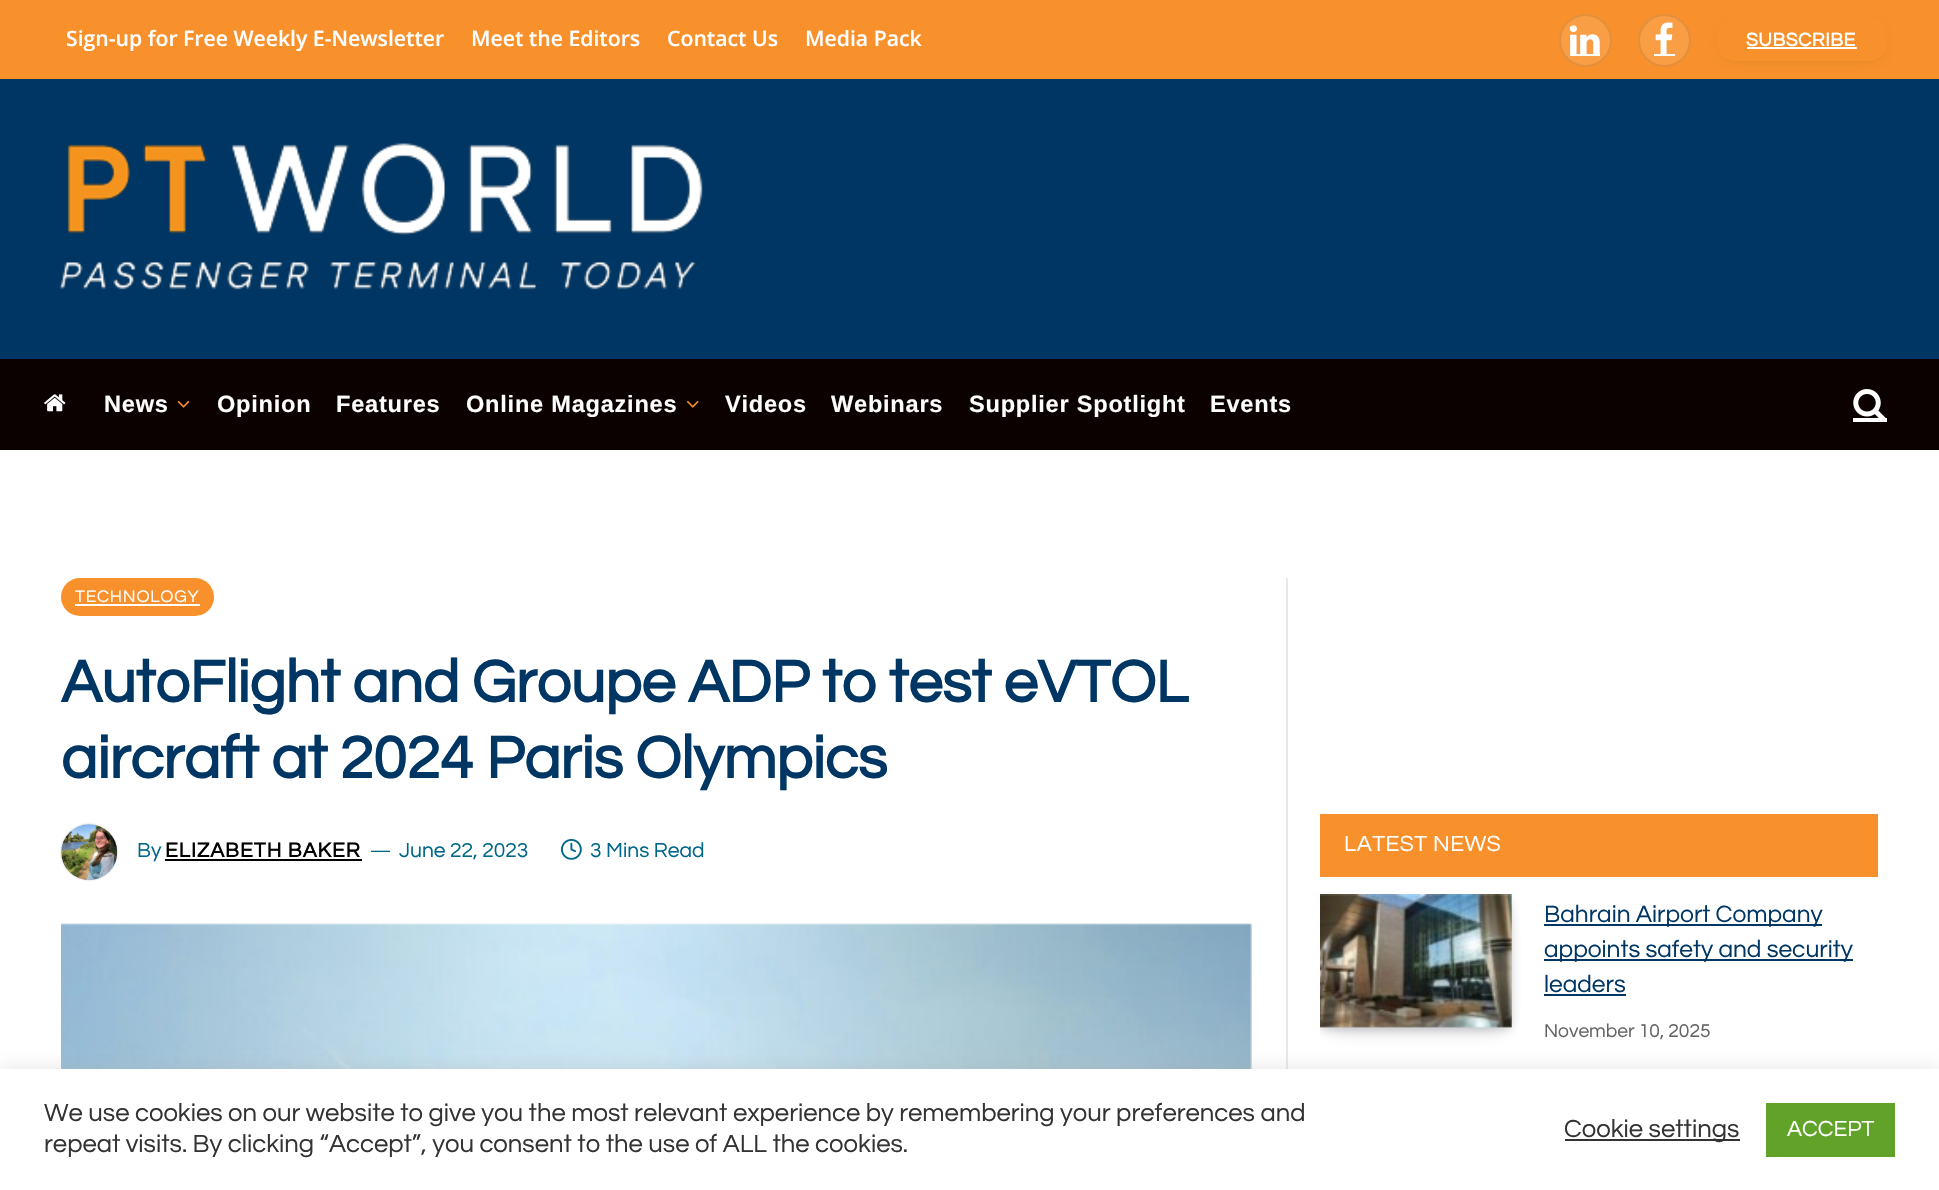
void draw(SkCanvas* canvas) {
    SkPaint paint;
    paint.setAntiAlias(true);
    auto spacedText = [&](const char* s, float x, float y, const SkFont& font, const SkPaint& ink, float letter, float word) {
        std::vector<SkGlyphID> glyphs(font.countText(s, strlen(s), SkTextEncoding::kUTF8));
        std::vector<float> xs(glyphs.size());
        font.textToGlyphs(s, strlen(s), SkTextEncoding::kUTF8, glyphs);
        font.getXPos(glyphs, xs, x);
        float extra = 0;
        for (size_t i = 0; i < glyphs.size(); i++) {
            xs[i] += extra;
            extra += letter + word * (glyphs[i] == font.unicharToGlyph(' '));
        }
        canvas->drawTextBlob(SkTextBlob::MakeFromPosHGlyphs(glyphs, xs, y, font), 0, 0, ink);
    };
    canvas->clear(0xFFFFFFFF);
    paint.setColor(0xFFF8912B);
    canvas->drawRect(SkRect::MakeXYWH(0, 0, 1939, 79), paint);
    SkFont font1(fontMgr->matchFamilyStyle("Open Sans", SkFontStyle(600, SkFontStyle::kNormal_Width, SkFontStyle::kUpright_Slant)), 21.2f);
    font1.setSubpixel(true);
    paint.setColor(0xFFFFFFFF);
    canvas->drawString("Sign-up for Free Weekly E-Newsletter", 66, 46, font1, paint);
    canvas->drawString("Meet the Editors", 471, 46, font1, paint);
    canvas->drawString("Contact Us", 667, 46, font1, paint);
    canvas->drawString("Media Pack", 805, 46, font1, paint);
    paint.setColor(0xFFF99E44);
    canvas->drawCircle(1585.5f, 40.5f, 26.5f, paint);
    paint.setStyle(SkPaint::kStroke_Style);
    paint.setStrokeWidth(2);
    paint.setColor(0x17000000);
    canvas->drawCircle(1585.5f, 40.5f, 25.5f, paint);
    canvas->drawImageRect(SkImages::DeferredFromEncodedData(SkData::MakeFromFileName("img1.png")), SkRect::MakeXYWH(1569, 25, 31, 29), SkSamplingOptions());
    paint.setStyle(SkPaint::kFill_Style);
    paint.setColor(0xFFFFFFFF);
    canvas->drawRect(SkRect::MakeXYWH(1570, 54, 30, 2), paint);
    paint.setColor(0xFFF99E44);
    canvas->drawCircle(1664.5f, 40.5f, 26.5f, paint);
    paint.setStyle(SkPaint::kStroke_Style);
    paint.setColor(0x17000000);
    canvas->drawCircle(1664.5f, 40.5f, 25.5f, paint);
    canvas->drawImageRect(SkImages::DeferredFromEncodedData(SkData::MakeFromFileName("img2.png")), SkRect::MakeXYWH(1655, 22, 18, 32), SkSamplingOptions());
    paint.setStyle(SkPaint::kFill_Style);
    paint.setColor(0xFFFFFFFF);
    canvas->drawRect(SkRect::MakeXYWH(1654, 54, 21, 2), paint);
    paint.setColor(0x29000000);
    paint.setMaskFilter(SkMaskFilter::MakeBlur(kNormal_SkBlurStyle, 6));
    canvas->drawRoundRect(SkRect::MakeXYWH(1724, 28, 156, 30), 11, 11, paint);
    paint.setMaskFilter(nullptr);
    paint.setColor(0xFFF8912B);
    canvas->drawRoundRect(SkRect::MakeXYWH(1717, 18, 170, 43), 18, 18, paint);
    SkFont font2(fontMgr->matchFamilyStyle("Questrial", SkFontStyle::Bold()), 19.25f);
    font2.setSubpixel(true);
    paint.setColor(0xFFFFFFFF);
    spacedText("SUBSCRIBE", 1746, 46, font2, paint, 0.5f, 0);
    canvas->drawRect(SkRect::MakeXYWH(1747, 47, 110, 2), paint);
    paint.setColor(0xFF003664);
    canvas->drawRect(SkRect::MakeXYWH(0, 79, 1939, 280), paint);
    canvas->drawImageRect(SkImages::DeferredFromEncodedData(SkData::MakeFromFileName("img3.png")), SkRect::MakeXYWH(59, 143, 644, 147), SkSamplingOptions());
    paint.setColor(0xFF0A0100);
    canvas->drawRect(SkRect::MakeXYWH(0, 359, 1939, 91), paint);
    canvas->drawImageRect(SkImages::DeferredFromEncodedData(SkData::MakeFromFileName("img4.png")), SkRect::MakeXYWH(44, 394, 22, 18), SkSamplingOptions());
    SkFont font3(fontMgr->matchFamilyStyle("Liberation Sans", SkFontStyle::Bold()), 23.6f);
    font3.setSubpixel(true);
    paint.setColor(0xFFFFFFFF);
    spacedText("News", 104, 412, font3, paint, 0.75f, 0);
    canvas->drawImageRect(SkImages::DeferredFromEncodedData(SkData::MakeFromFileName("img5.png")), SkRect::MakeXYWH(177, 400, 13, 8), SkSamplingOptions());
    spacedText("Opinion", 217, 412, font3, paint, 0.75f, 0);
    spacedText("Features", 336, 412, font3, paint, 0.75f, 0);
    spacedText("Online Magazines", 466, 412, font3, paint, 0.75f, 0);
    canvas->drawImageRect(SkImages::DeferredFromEncodedData(SkData::MakeFromFileName("img6.png")), SkRect::MakeXYWH(686, 400, 13, 8), SkSamplingOptions());
    spacedText("Videos", 725, 412, font3, paint, 0.75f, 0);
    spacedText("Webinars", 831, 412, font3, paint, 0.75f, 0);
    spacedText("Supplier Spotlight", 969, 412, font3, paint, 0.75f, 0);
    spacedText("Events", 1210, 412, font3, paint, 0.75f, 0);
    canvas->drawImageRect(SkImages::DeferredFromEncodedData(SkData::MakeFromFileName("img7.png")), SkRect::MakeXYWH(1853, 389, 33, 29), SkSamplingOptions());
    canvas->drawRect(SkRect::MakeXYWH(1853, 418, 34, 4), paint);
    paint.setColor(0xFFF8912B);
    canvas->drawRoundRect(SkRect::MakeXYWH(61, 578, 153, 38), 19, 19, paint);
    SkFont font4(fontMgr->matchFamilyStyle("Questrial", SkFontStyle::Normal()), 17.5f);
    font4.setSubpixel(true);
    paint.setColor(0xFFFFFFFF);
    spacedText("TECHNOLOGY", 75, 602, font4, paint, 0.75f, 0);
    canvas->drawRect(SkRect::MakeXYWH(75, 604, 125, 2), paint);
    SkFont font5(fontMgr->matchFamilyStyle("Questrial", SkFontStyle::Bold()), 61.25f);
    font5.setSubpixel(true);
    paint.setColor(0xFF003664);
    spacedText("AutoFlight and Groupe ADP to test eVTOL", 61, 702, font5, paint, -0.3f, 0);
    spacedText("aircraft at 2024 Paris Olympics", 61, 778, font5, paint, -0.3f, 0);
    paint.setColor(0x33000000);
    paint.setMaskFilter(SkMaskFilter::MakeBlur(kNormal_SkBlurStyle, 1));
    canvas->drawRoundRect(SkRect::MakeXYWH(61, 824, 56, 56), 28, 28, paint);
    paint.setMaskFilter(nullptr);
    canvas->drawImageRect(SkImages::DeferredFromEncodedData(SkData::MakeFromFileName("img8.png")), SkRect::MakeXYWH(61, 824, 57, 57), SkSamplingOptions());
    SkFont font6(fontMgr->matchFamilyStyle("Questrial", SkFontStyle::Normal()), 21);
    font6.setSubpixel(true);
    paint.setColor(0xFF006788);
    canvas->drawString("By", 137, 857, font6, paint);
    SkFont font7(fontMgr->matchFamilyStyle("Questrial", SkFontStyle::Bold()), 21);
    font7.setSubpixel(true);
    paint.setColor(0xFF000000);
    spacedText("ELIZABETH BAKER", 165, 857, font7, paint, 1, 0);
    canvas->drawRect(SkRect::MakeXYWH(165, 859, 197, 2), paint);
    SkFont font8(fontMgr->matchFamilyStyle("Questrial", SkFontStyle::Normal()), 19);
    font8.setSubpixel(true);
    paint.setColor(0xFF006788);
    canvas->drawString("—", 370, 857, font8, paint);
    canvas->drawString("June 22, 2023", 399, 857, font6, paint);
    canvas->drawImageRect(SkImages::DeferredFromEncodedData(SkData::MakeFromFileName("img9.png")), SkRect::MakeXYWH(560, 839, 22, 21), SkSamplingOptions());
    canvas->drawString("3 Mins Read", 590, 857, font6, paint);
    canvas->drawImageRect(SkImages::DeferredFromEncodedData(SkData::MakeFromFileName("img10.png")), SkRect::MakeXYWH(61, 923, 1191, 146), SkSamplingOptions());
    paint.setColor(0xFFE8E8E8);
    canvas->drawRect(SkRect::MakeXYWH(1286, 578, 2, 491), paint);
    paint.setColor(0xFFF8912B);
    canvas->drawRect(SkRect::MakeXYWH(1320, 814, 558, 63), paint);
    SkFont font9(fontMgr->matchFamilyStyle("Questrial", SkFontStyle::Normal()), 22.75f);
    font9.setSubpixel(true);
    paint.setColor(0xFFFFFFFF);
    spacedText("LATEST NEWS", 1344, 851, font9, paint, 0.5f, 0);
    canvas->save();
    canvas->clipRect(SkRect::MakeXYWH(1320, 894, 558, 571));
    paint.setColor(0x33070A19);
    paint.setMaskFilter(SkMaskFilter::MakeBlur(kNormal_SkBlurStyle, 10.5f));
    canvas->drawRect(SkRect::MakeXYWH(1330, 915, 172, 112), paint);
    paint.setMaskFilter(nullptr);
    paint.setMaskFilter(SkMaskFilter::MakeBlur(kNormal_SkBlurStyle, 5));
    canvas->drawRect(SkRect::MakeXYWH(1321, 900, 189, 129), paint);
    paint.setMaskFilter(nullptr);
    canvas->restore();
    canvas->drawImageRect(SkImages::DeferredFromEncodedData(SkData::MakeFromFileName("img11.png")), SkRect::MakeXYWH(1320, 894, 192, 134), SkSamplingOptions());
    paint.setColor(0xFF003664);
    canvas->drawRect(SkRect::MakeXYWH(1544, 924, 278, 2), paint);
    SkFont font10(fontMgr->matchFamilyStyle("Questrial", SkFontStyle::Normal()), 24.5f);
    font10.setSubpixel(true);
    canvas->drawString("Bahrain Airport Company", 1544, 922, font10, paint);
    canvas->drawRect(SkRect::MakeXYWH(1544, 959, 309, 2), paint);
    canvas->drawString("appoints safety and security", 1544, 957, font10, paint);
    canvas->drawString("leaders", 1544, 992, font10, paint);
    canvas->drawRect(SkRect::MakeXYWH(1544, 994, 82, 2), paint);
    SkFont font11(fontMgr->matchFamilyStyle("Questrial", SkFontStyle::Normal()), 19.25f);
    font11.setSubpixel(true);
    paint.setColor(0xFF636363);
    canvas->drawString("November 10, 2025", 1544, 1037, font11, paint);
    paint.setColor(0x4DACABAB);
    paint.setMaskFilter(SkMaskFilter::MakeBlur(kNormal_SkBlurStyle, 9));
    canvas->drawRect(SkRect::MakeXYWH(0, 1068, 1939, 120), paint);
    paint.setMaskFilter(nullptr);
    paint.setColor(0xFFFFFFFF);
    canvas->drawRect(SkRect::MakeXYWH(0, 1069, 1939, 121), paint);
    SkFont font12(fontMgr->matchFamilyStyle("Questrial", SkFontStyle::Normal()), 25.65f);
    font12.setSubpixel(true);
    paint.setColor(0xFF333333);
    canvas->drawString("We use cookies on our website to give you the most relevant experience by remembering your preferences and", 44, 1121, font12, paint);
    canvas->drawString("repeat visits. By clicking “Accept”, you consent to the use of ALL the cookies.", 44, 1152, font12, paint);
    canvas->drawRect(SkRect::MakeXYWH(1565, 1139, 175, 2), paint);
    canvas->drawString("Cookie settings", 1564, 1137, font12, paint);
    paint.setColor(0xFF61A229);
    canvas->drawRect(SkRect::MakeXYWH(1766, 1103, 129, 54), paint);
    paint.setColor(0xFFFFFFFF);
    canvas->drawString("ACCEPT", 1787, 1136, font9, paint);
}
